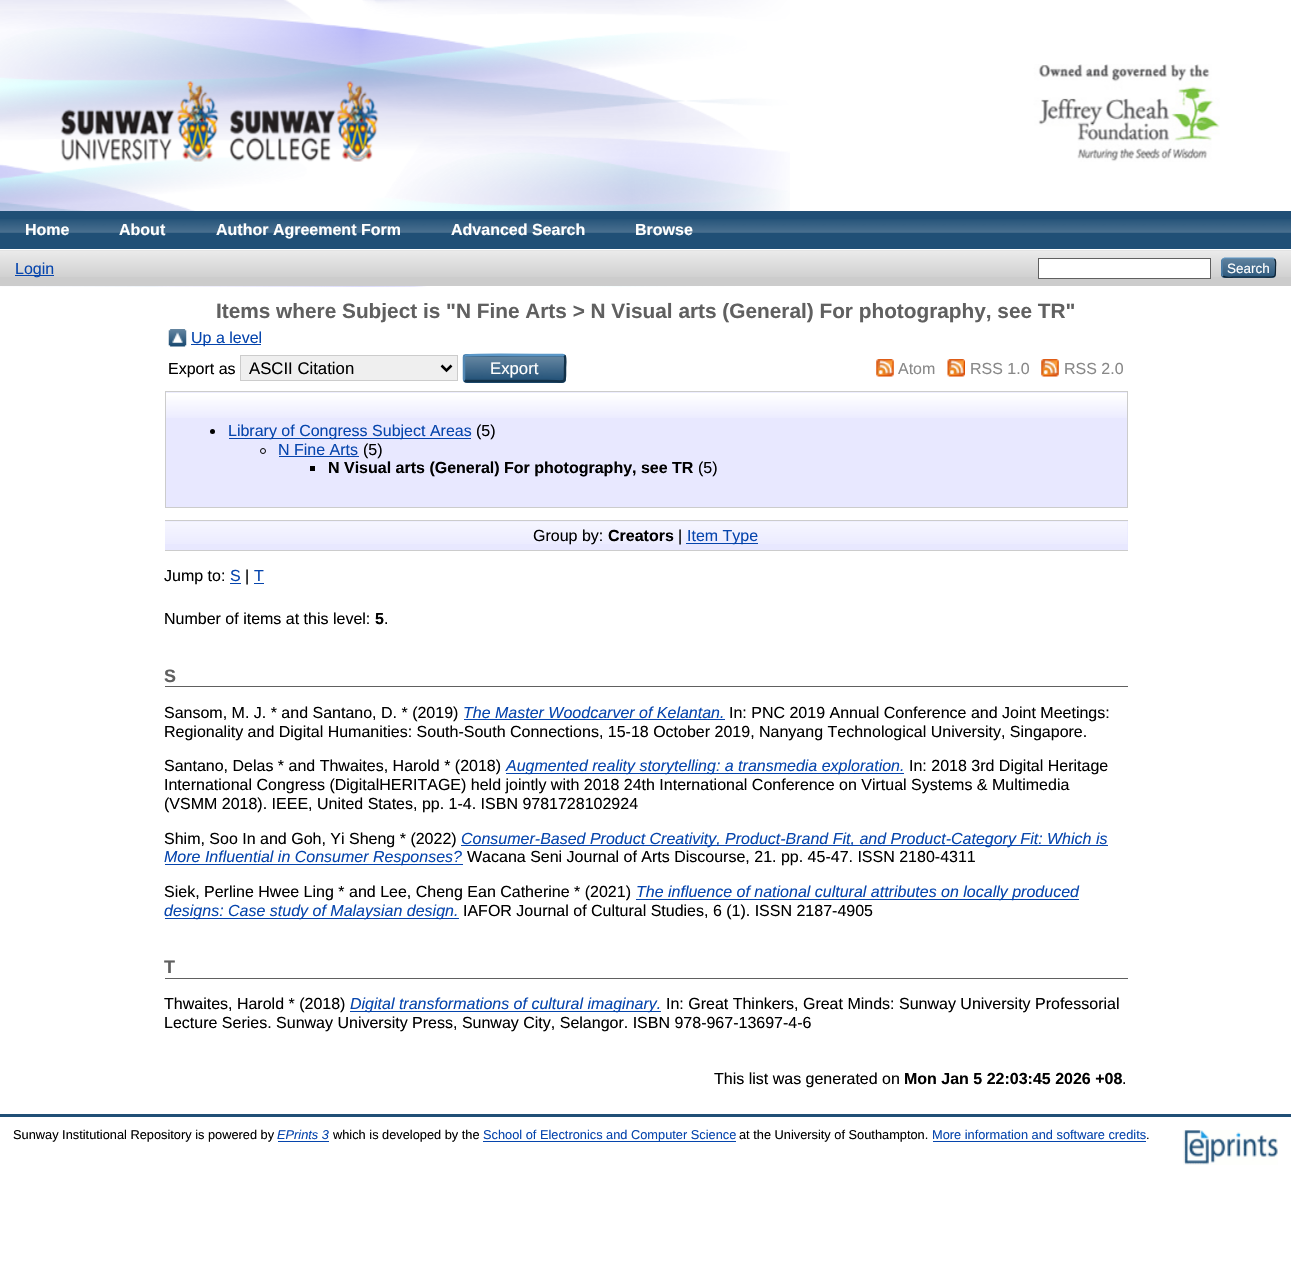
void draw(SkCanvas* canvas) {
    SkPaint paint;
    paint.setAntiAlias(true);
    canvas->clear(0xFFFFFFFF);
    canvas->drawImageRect(SkImages::DeferredFromEncodedData(SkData::MakeFromFileName("img1.png")), SkRect::MakeXYWH(0, 0, 790, 287), SkSamplingOptions());
    canvas->drawImageRect(SkImages::DeferredFromEncodedData(SkData::MakeFromFileName("img2.png")), SkRect::MakeXYWH(60, 64, 1160, 98), SkSamplingOptions());
    paint.setColor(0xFF204F76);
    canvas->drawRect(SkRect::MakeXYWH(0, 211, 1291, 38), paint);
    canvas->drawImageRect(SkImages::DeferredFromEncodedData(SkData::MakeFromFileName("img3.png")), SkRect::MakeXYWH(0, 219, 1291, 14), SkSamplingOptions());
    paint.setColor(0xFFFFFFFF);
    canvas->drawRect(SkRect::MakeXYWH(0, 249, 779, 1), paint);
    SkFont font1(fontMgr->matchFamilyStyle("Liberation Sans", SkFontStyle::Bold()), 16);
    font1.setSubpixel(true);
    canvas->drawString("Home", 25, 235, font1, paint);
    canvas->drawString("About", 119, 235, font1, paint);
    canvas->drawString("Author Agreement Form", 216, 235, font1, paint);
    canvas->drawString("Advanced Search", 451, 235, font1, paint);
    canvas->drawString("Browse", 635, 235, font1, paint);
    paint.setColor(0xFFCCCCCC);
    canvas->drawRect(SkRect::MakeXYWH(0, 250, 1291, 36), paint);
    canvas->drawImageRect(SkImages::DeferredFromEncodedData(SkData::MakeFromFileName("img4.png")), SkRect::MakeXYWH(0, 250, 1291, 27), SkSamplingOptions());
    paint.setColor(0xFF0645AD);
    canvas->drawRect(SkRect::MakeXYWH(15, 275, 39, 1), paint);
    SkFont font2(fontMgr->matchFamilyStyle("Liberation Sans", SkFontStyle::Normal()), 16);
    font2.setSubpixel(true);
    canvas->drawString("Login", 15, 274, font2, paint);
    paint.setColor(0xFFFFFFFF);
    canvas->drawRect(SkRect::MakeXYWH(1038.5f, 258.5f, 172, 20), paint);
    paint.setStyle(SkPaint::kStroke_Style);
    paint.setStrokeWidth(1);
    paint.setColor(0xFF606060);
    canvas->drawRect(SkRect::MakeXYWH(1038.5f, 258.5f, 172, 20), paint);
    paint.setStyle(SkPaint::kFill_Style);
    paint.setColor(0xFF1F4F76);
    canvas->drawRoundRect(SkRect::MakeXYWH(1221, 258, 55, 20), 4, 4, paint);
    canvas->drawImageRect(SkImages::DeferredFromEncodedData(SkData::MakeFromFileName("img5.png")), SkRect::MakeXYWH(1221, 258, 55, 20), SkSamplingOptions());
    paint.setStyle(SkPaint::kStroke_Style);
    paint.setStrokeWidth(1.2f);
    paint.setColor(0xFF5B97C7);
    canvas->drawPath(SkPathBuilder().moveTo(1223, 259).lineTo(1224.5f, 258).lineTo(1273, 258).lineTo(1274.5f, 259).detach(), paint);
    paint.setColor(0xFF0D2131);
    canvas->drawPath(SkPathBuilder().moveTo(1274.5f, 259).cubicTo(1276.5f, 261, 1275.5f, 265, 1275.5f, 267.5f).cubicTo(1275.5f, 278.5f, 1276, 277, 1264.5f, 277).lineTo(1233, 277).cubicTo(1232.5f, 277, 1225, 278, 1223, 276).detach(), paint);
    paint.setColor(0xFF5287B3);
    canvas->drawPath(SkPathBuilder().moveTo(1223, 276).cubicTo(1221, 274, 1222, 269.5f, 1222, 267.5f).cubicTo(1222, 265.5f, 1221, 261, 1223, 259).detach(), paint);
    SkFont font3(fontMgr->matchFamilyStyle("Liberation Sans", SkFontStyle::Normal()), 13.5f);
    font3.setSubpixel(true);
    paint.setStyle(SkPaint::kFill_Style);
    paint.setColor(0xFFFFFFFF);
    canvas->drawString("Search", 1227, 273, font3, paint);
    SkFont font4(fontMgr->matchFamilyStyle("Liberation Sans", SkFontStyle::Bold()), 20.8f);
    font4.setSubpixel(true);
    paint.setColor(0xFF606060);
    canvas->drawString("Items where Subject is \"N Fine Arts > N Visual arts (General) For photography, see TR\"", 216, 318, font4, paint);
    canvas->drawImageRect(SkImages::DeferredFromEncodedData(SkData::MakeFromFileName("img6.png")), SkRect::MakeXYWH(168, 329, 19, 18), SkSamplingOptions());
    paint.setColor(0xFF0645AD);
    canvas->drawRect(SkRect::MakeXYWH(191, 344, 70, 1), paint);
    canvas->drawString("Up a level", 191, 343, font2, paint);
    paint.setColor(0xFF000000);
    canvas->drawString("Export as", 168, 374, font2, paint);
    paint.setColor(0xFFEFEFEF);
    canvas->drawRect(SkRect::MakeXYWH(240.5f, 355.5f, 217, 25), paint);
    paint.setStyle(SkPaint::kStroke_Style);
    paint.setStrokeWidth(1);
    paint.setColor(0xFFCCCCCC);
    canvas->drawRect(SkRect::MakeXYWH(240.5f, 355.5f, 217, 25), paint);
    paint.setStrokeWidth(2.5f);
    paint.setColor(0xFF000000);
    canvas->drawPath(SkPathBuilder().moveTo(441.5f, 365.5f).lineTo(446.5f, 370.5f).lineTo(451.5f, 365.5f).detach(), paint);
    SkFont font5(fontMgr->matchFamilyStyle("Liberation Sans", SkFontStyle::Normal()), 16.75f);
    font5.setSubpixel(true);
    paint.setStyle(SkPaint::kFill_Style);
    canvas->drawString("ASCII Citation", 249, 374, font5, paint);
    paint.setColor(0xFF1F4F76);
    canvas->drawRoundRect(SkRect::MakeXYWH(463, 354, 103, 29), 4, 4, paint);
    canvas->drawImageRect(SkImages::DeferredFromEncodedData(SkData::MakeFromFileName("img7.png")), SkRect::MakeXYWH(465, 356, 101, 24), SkSamplingOptions());
    paint.setStyle(SkPaint::kStroke_Style);
    paint.setColor(0xFF5B97C7);
    canvas->drawPath(SkPathBuilder().moveTo(464.5f, 355.5f).lineTo(465, 355.5f).cubicTo(467, 354, 538, 355, 546.5f, 355).lineTo(562.5f, 355).lineTo(564.5f, 355.5f).detach(), paint);
    paint.setColor(0xFF13324A);
    canvas->drawPath(SkPathBuilder().moveTo(564.5f, 355.5f).cubicTo(566, 357.5f, 565, 365.5f, 565, 368).cubicTo(565, 385.5f, 567, 381, 546.5f, 381).lineTo(466, 381).lineTo(464.5f, 380.5f).detach(), paint);
    paint.setColor(0xFF5287B3);
    canvas->drawPath(SkPathBuilder().moveTo(464.5f, 380.5f).cubicTo(464, 380, 464, 379.5f, 464, 379).lineTo(464, 357.5f).cubicTo(464, 357, 464, 356, 464.5f, 355.5f).detach(), paint);
    paint.setStyle(SkPaint::kFill_Style);
    paint.setColor(0xFFFFFFFF);
    canvas->drawString("Export", 490, 374, font5, paint);
    canvas->drawImageRect(SkImages::DeferredFromEncodedData(SkData::MakeFromFileName("img8.png")), SkRect::MakeXYWH(876, 359, 18, 18), SkSamplingOptions());
    paint.setColor(0xFF888888);
    canvas->drawString("Atom", 898, 374, font2, paint);
    canvas->drawImageRect(SkImages::DeferredFromEncodedData(SkData::MakeFromFileName("img9.png")), SkRect::MakeXYWH(947, 359, 18, 18), SkSamplingOptions());
    canvas->drawString("RSS 1.0", 970, 374, font2, paint);
    canvas->drawImageRect(SkImages::DeferredFromEncodedData(SkData::MakeFromFileName("img8.png")), SkRect::MakeXYWH(1041, 359, 18, 18), SkSamplingOptions());
    canvas->drawString("RSS 2.0", 1064, 374, font2, paint);
    paint.setColor(0xFFE8E8FF);
    canvas->drawRect(SkRect::MakeXYWH(166, 392, 961, 115), paint);
    canvas->drawImageRect(SkImages::DeferredFromEncodedData(SkData::MakeFromFileName("img10.png")), SkRect::MakeXYWH(166, 392, 961, 26), SkSamplingOptions());
    paint.setStyle(SkPaint::kStroke_Style);
    paint.setStrokeWidth(1);
    paint.setColor(0xFFCCCCCC);
    canvas->drawRect(SkRect::MakeXYWH(165.5f, 391.5f, 962, 116), paint);
    paint.setStyle(SkPaint::kFill_Style);
    paint.setColor(0xFF000000);
    canvas->drawCircle(212.5f, 431.5f, 2.5f, paint);
    paint.setColor(0xFF0645AD);
    canvas->drawRect(SkRect::MakeXYWH(229, 438, 242, 1), paint);
    canvas->drawString("Library of Congress Subject Areas", 228, 436, font2, paint);
    paint.setColor(0xFF000000);
    canvas->drawString("(5)", 476, 436, font2, paint);
    paint.setStyle(SkPaint::kStroke_Style);
    canvas->drawCircle(263, 451, 2.5f, paint);
    paint.setStyle(SkPaint::kFill_Style);
    paint.setColor(0xFF0645AD);
    canvas->drawString("N Fine Arts", 278, 455, font2, paint);
    canvas->drawRect(SkRect::MakeXYWH(279, 456, 80, 1), paint);
    paint.setColor(0xFF000000);
    canvas->drawString("(5)", 363, 455, font2, paint);
    canvas->drawRect(SkRect::MakeXYWH(310, 466, 5, 5), paint);
    canvas->drawString("N Visual arts (General) For photography, see TR", 328, 473, font1, paint);
    canvas->drawString("(5)", 698, 473, font2, paint);
    paint.setColor(0xFFE8E8FF);
    canvas->drawRect(SkRect::MakeXYWH(165, 521, 963, 29), paint);
    canvas->drawImageRect(SkImages::DeferredFromEncodedData(SkData::MakeFromFileName("img11.png")), SkRect::MakeXYWH(165, 521, 963, 23), SkSamplingOptions());
    paint.setColor(0xFFCCCCCC);
    canvas->drawRect(SkRect::MakeXYWH(165, 520, 963, 1), paint);
    canvas->drawRect(SkRect::MakeXYWH(165, 550, 963, 1), paint);
    paint.setColor(0xFF000000);
    canvas->drawString("Group by:", 533, 541, font2, paint);
    canvas->drawString("Creators", 608, 541, font1, paint);
    canvas->drawString("|", 678, 541, font2, paint);
    paint.setColor(0xFF0645AD);
    canvas->drawRect(SkRect::MakeXYWH(686, 543, 72, 1), paint);
    canvas->drawString("Item Type", 687, 541, font2, paint);
    paint.setColor(0xFF000000);
    canvas->drawString("Jump to:", 164, 581, font2, paint);
    paint.setColor(0xFF0645AD);
    canvas->drawString("S", 230, 581, font2, paint);
    canvas->drawRect(SkRect::MakeXYWH(230, 583, 11, 1), paint);
    paint.setColor(0xFF000000);
    canvas->drawString("|", 245, 581, font2, paint);
    paint.setColor(0xFF0645AD);
    canvas->drawString("T", 254, 581, font2, paint);
    canvas->drawRect(SkRect::MakeXYWH(254, 583, 10, 1), paint);
    paint.setColor(0xFF000000);
    canvas->drawString("Number of items at this level:", 164, 624, font2, paint);
    canvas->drawString("5", 375, 624, font1, paint);
    canvas->drawString(".", 384, 624, font2, paint);
    paint.setColor(0xFF606060);
    canvas->drawRect(SkRect::MakeXYWH(165, 686, 963, 1), paint);
    SkFont font6(fontMgr->matchFamilyStyle("Liberation Sans", SkFontStyle::Bold()), 18);
    font6.setSubpixel(true);
    canvas->drawString("S", 164, 682, font6, paint);
    paint.setColor(0xFF000000);
    canvas->drawString("Sansom, M. J. * and Santano, D. * (2019)", 164, 718, font2, paint);
    SkFont font7(fontMgr->matchFamilyStyle("Liberation Sans", SkFontStyle::Italic()), 16);
    font7.setSubpixel(true);
    paint.setColor(0xFF0645AD);
    canvas->drawString("The Master Woodcarver of Kelantan.", 463, 718, font7, paint);
    canvas->drawRect(SkRect::MakeXYWH(464, 719, 261, 1), paint);
    paint.setColor(0xFF000000);
    canvas->drawString("In: PNC 2019 Annual Conference and Joint Meetings:", 729, 718, font2, paint);
    canvas->drawString("Regionality and Digital Humanities: South-South Connections, 15-18 October 2019, Nanyang Technological University, Singapore.", 164, 737, font2, paint);
    canvas->drawString("Santano, Delas * and Thwaites, Harold * (2018)", 164, 771, font2, paint);
    paint.setColor(0xFF0645AD);
    canvas->drawRect(SkRect::MakeXYWH(506, 773, 398, 1), paint);
    canvas->drawString("Augmented reality storytelling: a transmedia exploration.", 506, 771, font7, paint);
    paint.setColor(0xFF000000);
    canvas->drawString("In: 2018 3rd Digital Heritage", 909, 771, font2, paint);
    canvas->drawString("International Congress (DigitalHERITAGE) held jointly with 2018 24th International Conference on Virtual Systems & Multimedia", 164, 790, font2, paint);
    canvas->drawString("(VSMM 2018). IEEE, United States, pp. 1-4. ISBN 9781728102924", 164, 809, font2, paint);
    canvas->drawString("Shim, Soo In and Goh, Yi Sheng * (2022)", 164, 844, font2, paint);
    paint.setColor(0xFF0645AD);
    canvas->drawRect(SkRect::MakeXYWH(461, 845, 647, 1), paint);
    canvas->drawString("Consumer-Based Product Creativity, Product-Brand Fit, and Product-Category Fit: Which is", 461, 844, font7, paint);
    canvas->drawRect(SkRect::MakeXYWH(165, 864, 298, 1), paint);
    canvas->drawString("More Influential in Consumer Responses?", 164, 862, font7, paint);
    paint.setColor(0xFF000000);
    canvas->drawString("Wacana Seni Journal of Arts Discourse, 21. pp. 45-47. ISSN 2180-4311", 467, 862, font2, paint);
    canvas->drawString("Siek, Perline Hwee Ling * and Lee, Cheng Ean Catherine * (2021)", 164, 897, font2, paint);
    paint.setColor(0xFF0645AD);
    canvas->drawRect(SkRect::MakeXYWH(636, 899, 443, 1), paint);
    canvas->drawString("The influence of national cultural attributes on locally produced", 636, 897, font7, paint);
    canvas->drawRect(SkRect::MakeXYWH(165, 918, 294, 1), paint);
    canvas->drawString("designs: Case study of Malaysian design.", 164, 916, font7, paint);
    paint.setColor(0xFF000000);
    canvas->drawString("IAFOR Journal of Cultural Studies, 6 (1). ISSN 2187-4905", 463, 916, font2, paint);
    paint.setColor(0xFF606060);
    canvas->drawRect(SkRect::MakeXYWH(165, 978, 963, 1), paint);
    canvas->drawString("T", 164, 973, font6, paint);
    paint.setColor(0xFF000000);
    canvas->drawString("Thwaites, Harold * (2018)", 164, 1009, font2, paint);
    paint.setColor(0xFF0645AD);
    canvas->drawRect(SkRect::MakeXYWH(350, 1011, 311, 1), paint);
    canvas->drawString("Digital transformations of cultural imaginary.", 350, 1009, font7, paint);
    paint.setColor(0xFF000000);
    canvas->drawString("In: Great Thinkers, Great Minds: Sunway University Professorial", 666, 1009, font2, paint);
    canvas->drawString("Lecture Series. Sunway University Press, Sunway City, Selangor. ISBN 978-967-13697-4-6", 164, 1028, font2, paint);
    canvas->drawString("This list was generated on", 714, 1084, font2, paint);
    canvas->drawString("Mon Jan 5 22:03:45 2026 +08", 904, 1084, font1, paint);
    canvas->drawString(".", 1122, 1084, font2, paint);
    paint.setColor(0xFF204F76);
    canvas->drawRect(SkRect::MakeXYWH(0, 1114, 1291, 3), paint);
    SkFont font8(fontMgr->matchFamilyStyle("Liberation Sans", SkFontStyle::Normal()), 12.8f);
    font8.setSubpixel(true);
    paint.setColor(0xFF000000);
    canvas->drawString("Sunway Institutional Repository is powered by", 13, 1139, font8, paint);
    SkFont font9(fontMgr->matchFamilyStyle("Liberation Sans", SkFontStyle::Italic()), 12.8f);
    font9.setSubpixel(true);
    paint.setColor(0xFF0645AD);
    canvas->drawString("EPrints 3", 277, 1139, font9, paint);
    canvas->drawRect(SkRect::MakeXYWH(278, 1141, 51, 1), paint);
    paint.setColor(0xFF000000);
    canvas->drawString("which is developed by the", 333, 1139, font8, paint);
    paint.setColor(0xFF0645AD);
    canvas->drawRect(SkRect::MakeXYWH(483, 1141, 253, 1), paint);
    canvas->drawString("School of Electronics and Computer Science", 483, 1139, font8, paint);
    paint.setColor(0xFF000000);
    canvas->drawString("at the University of Southampton.", 739, 1139, font8, paint);
    paint.setColor(0xFF0645AD);
    canvas->drawString("More information and software credits", 932, 1139, font8, paint);
    canvas->drawRect(SkRect::MakeXYWH(933, 1141, 213, 1), paint);
    paint.setColor(0xFF000000);
    canvas->drawString(".", 1146, 1139, font8, paint);
    canvas->drawImageRect(SkImages::DeferredFromEncodedData(SkData::MakeFromFileName("img12.png")), SkRect::MakeXYWH(1183, 1130, 95, 35), SkSamplingOptions());
}
